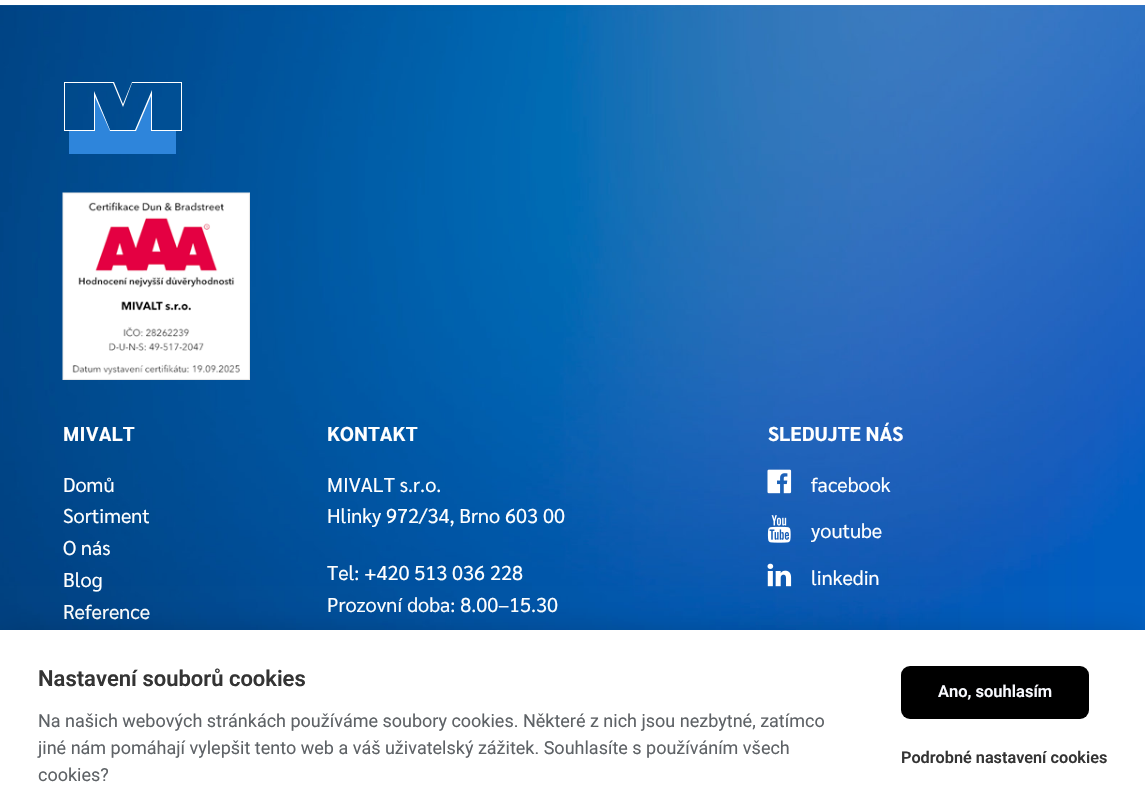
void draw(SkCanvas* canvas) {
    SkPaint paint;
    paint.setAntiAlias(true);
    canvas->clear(0xFFFFFFFF);
    canvas->drawImageRect(SkImages::DeferredFromEncodedData(SkData::MakeFromFileName("img1.png")), SkRect::MakeXYWH(0, 5, 1145, 625), SkSamplingOptions());
    paint.setColor(0xFF2E85DB);
    canvas->drawPath(SkPathBuilder().moveTo(136, 130).lineTo(151, 94).lineTo(151, 130).lineTo(176, 130).lineTo(176, 154).lineTo(69, 154).lineTo(69, 130).lineTo(95, 130).lineTo(95, 94).lineTo(110, 130).close().detach(), paint);
    paint.setColor(0xFFFFFFFF);
    canvas->drawPath(SkPathBuilder(SkPathFillType::kEvenOdd).moveTo(123, 104).lineTo(132, 82).lineTo(182, 82).lineTo(182, 131).lineTo(151, 131).lineTo(151, 96).lineTo(136, 131).lineTo(110, 131).lineTo(95, 97).lineTo(95, 131).lineTo(64, 131).lineTo(64, 82).lineTo(114, 82).close().moveTo(65, 83).lineTo(65, 130).lineTo(94, 130).lineTo(94, 91).lineTo(110, 130).lineTo(135, 130).lineTo(152, 90).lineTo(152, 130).lineTo(181, 130).lineTo(181, 83).lineTo(132, 83).lineTo(123, 107).lineTo(113, 83).close().detach(), paint);
    canvas->drawImageRect(SkImages::DeferredFromEncodedData(SkData::MakeFromFileName("img2.png")), SkRect::MakeXYWH(62, 192, 188, 188), SkSamplingOptions());
    SkFont font1(fontMgr->matchFamilyStyle("Sarabun", SkFontStyle::Bold()), 20);
    font1.setSubpixel(true);
    canvas->drawString("MIVALT", 63, 441, font1, paint);
    SkFont font2(fontMgr->matchFamilyStyle("Sarabun", SkFontStyle::Normal()), 20);
    font2.setSubpixel(true);
    canvas->drawString("Domů", 63, 492, font2, paint);
    canvas->drawString("Sortiment", 63, 523, font2, paint);
    canvas->drawString("O nás", 63, 555, font2, paint);
    canvas->drawString("Blog", 63, 587, font2, paint);
    canvas->drawString("Reference", 63, 619, font2, paint);
    canvas->drawString("KONTAKT", 327, 441, font1, paint);
    canvas->drawString("MIVALT s.r.o.", 327, 492, font2, paint);
    canvas->drawString("Hlinky 972/34, Brno 603 00", 327, 523, font2, paint);
    canvas->drawString("Tel: +420 513 036 228", 327, 580, font2, paint);
    canvas->drawString("Prozovní doba: 8.00–15.30", 327, 612, font2, paint);
    canvas->drawString("SLEDUJTE NÁS", 768, 441, font1, paint);
    canvas->drawImageRect(SkImages::DeferredFromEncodedData(SkData::MakeFromFileName("img3.png")), SkRect::MakeXYWH(767, 469, 25, 25), SkSamplingOptions());
    canvas->drawString("facebook", 811, 492, font2, paint);
    canvas->drawImageRect(SkImages::DeferredFromEncodedData(SkData::MakeFromFileName("img4.png")), SkRect::MakeXYWH(767, 515, 24, 28), SkSamplingOptions());
    canvas->drawString("youtube", 811, 538, font2, paint);
    canvas->drawImageRect(SkImages::DeferredFromEncodedData(SkData::MakeFromFileName("img5.png")), SkRect::MakeXYWH(767, 563, 25, 24), SkSamplingOptions());
    canvas->drawString("linkedin", 811, 585, font2, paint);
    paint.setColor(0x47020203);
    paint.setMaskFilter(SkMaskFilter::MakeBlur(kNormal_SkBlurStyle, 19));
    canvas->drawRect(SkRect::MakeXYWH(0, 643, 1145, 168), paint);
    paint.setMaskFilter(nullptr);
    paint.setColor(0xFFFFFFFF);
    canvas->drawRect(SkRect::MakeXYWH(0, 630, 1145, 168), paint);
    SkFont font3(fontMgr->matchFamilyStyle("Roboto", SkFontStyle(600, SkFontStyle::kNormal_Width, SkFontStyle::kUpright_Slant)), 22);
    font3.setSubpixel(true);
    paint.setColor(0xFF343434);
    canvas->drawString("Nastavení souborů cookies", 38, 686, font3, paint);
    SkFont font4(fontMgr->matchFamilyStyle("Roboto", SkFontStyle::Normal()), 18);
    font4.setSubpixel(true);
    paint.setColor(0xFF5E6266);
    canvas->drawString("Na našich webových stránkách používáme soubory cookies. Některé z nich jsou nezbytné, zatímco", 38, 727, font4, paint);
    canvas->drawString("jiné nám pomáhají vylepšit tento web a váš uživatelský zážitek. Souhlasíte s používáním všech", 38, 754, font4, paint);
    canvas->drawString("cookies?", 38, 781, font4, paint);
    paint.setColor(0xFF000000);
    canvas->drawRoundRect(SkRect::MakeXYWH(901, 666, 188, 53), 9, 9, paint);
    SkFont font5(fontMgr->matchFamilyStyle("Roboto", SkFontStyle(600, SkFontStyle::kNormal_Width, SkFontStyle::kUpright_Slant)), 16.5f);
    font5.setSubpixel(true);
    paint.setColor(0xFFF9FAFF);
    canvas->drawString("Ano, souhlasím", 938, 697, font5, paint);
    SkFont font6(fontMgr->matchFamilyStyle("Roboto", SkFontStyle(600, SkFontStyle::kNormal_Width, SkFontStyle::kUpright_Slant)), 16.25f);
    font6.setSubpixel(true);
    paint.setColor(0xFF343434);
    canvas->drawString("Podrobné nastavení cookies", 901, 763, font6, paint);
}
